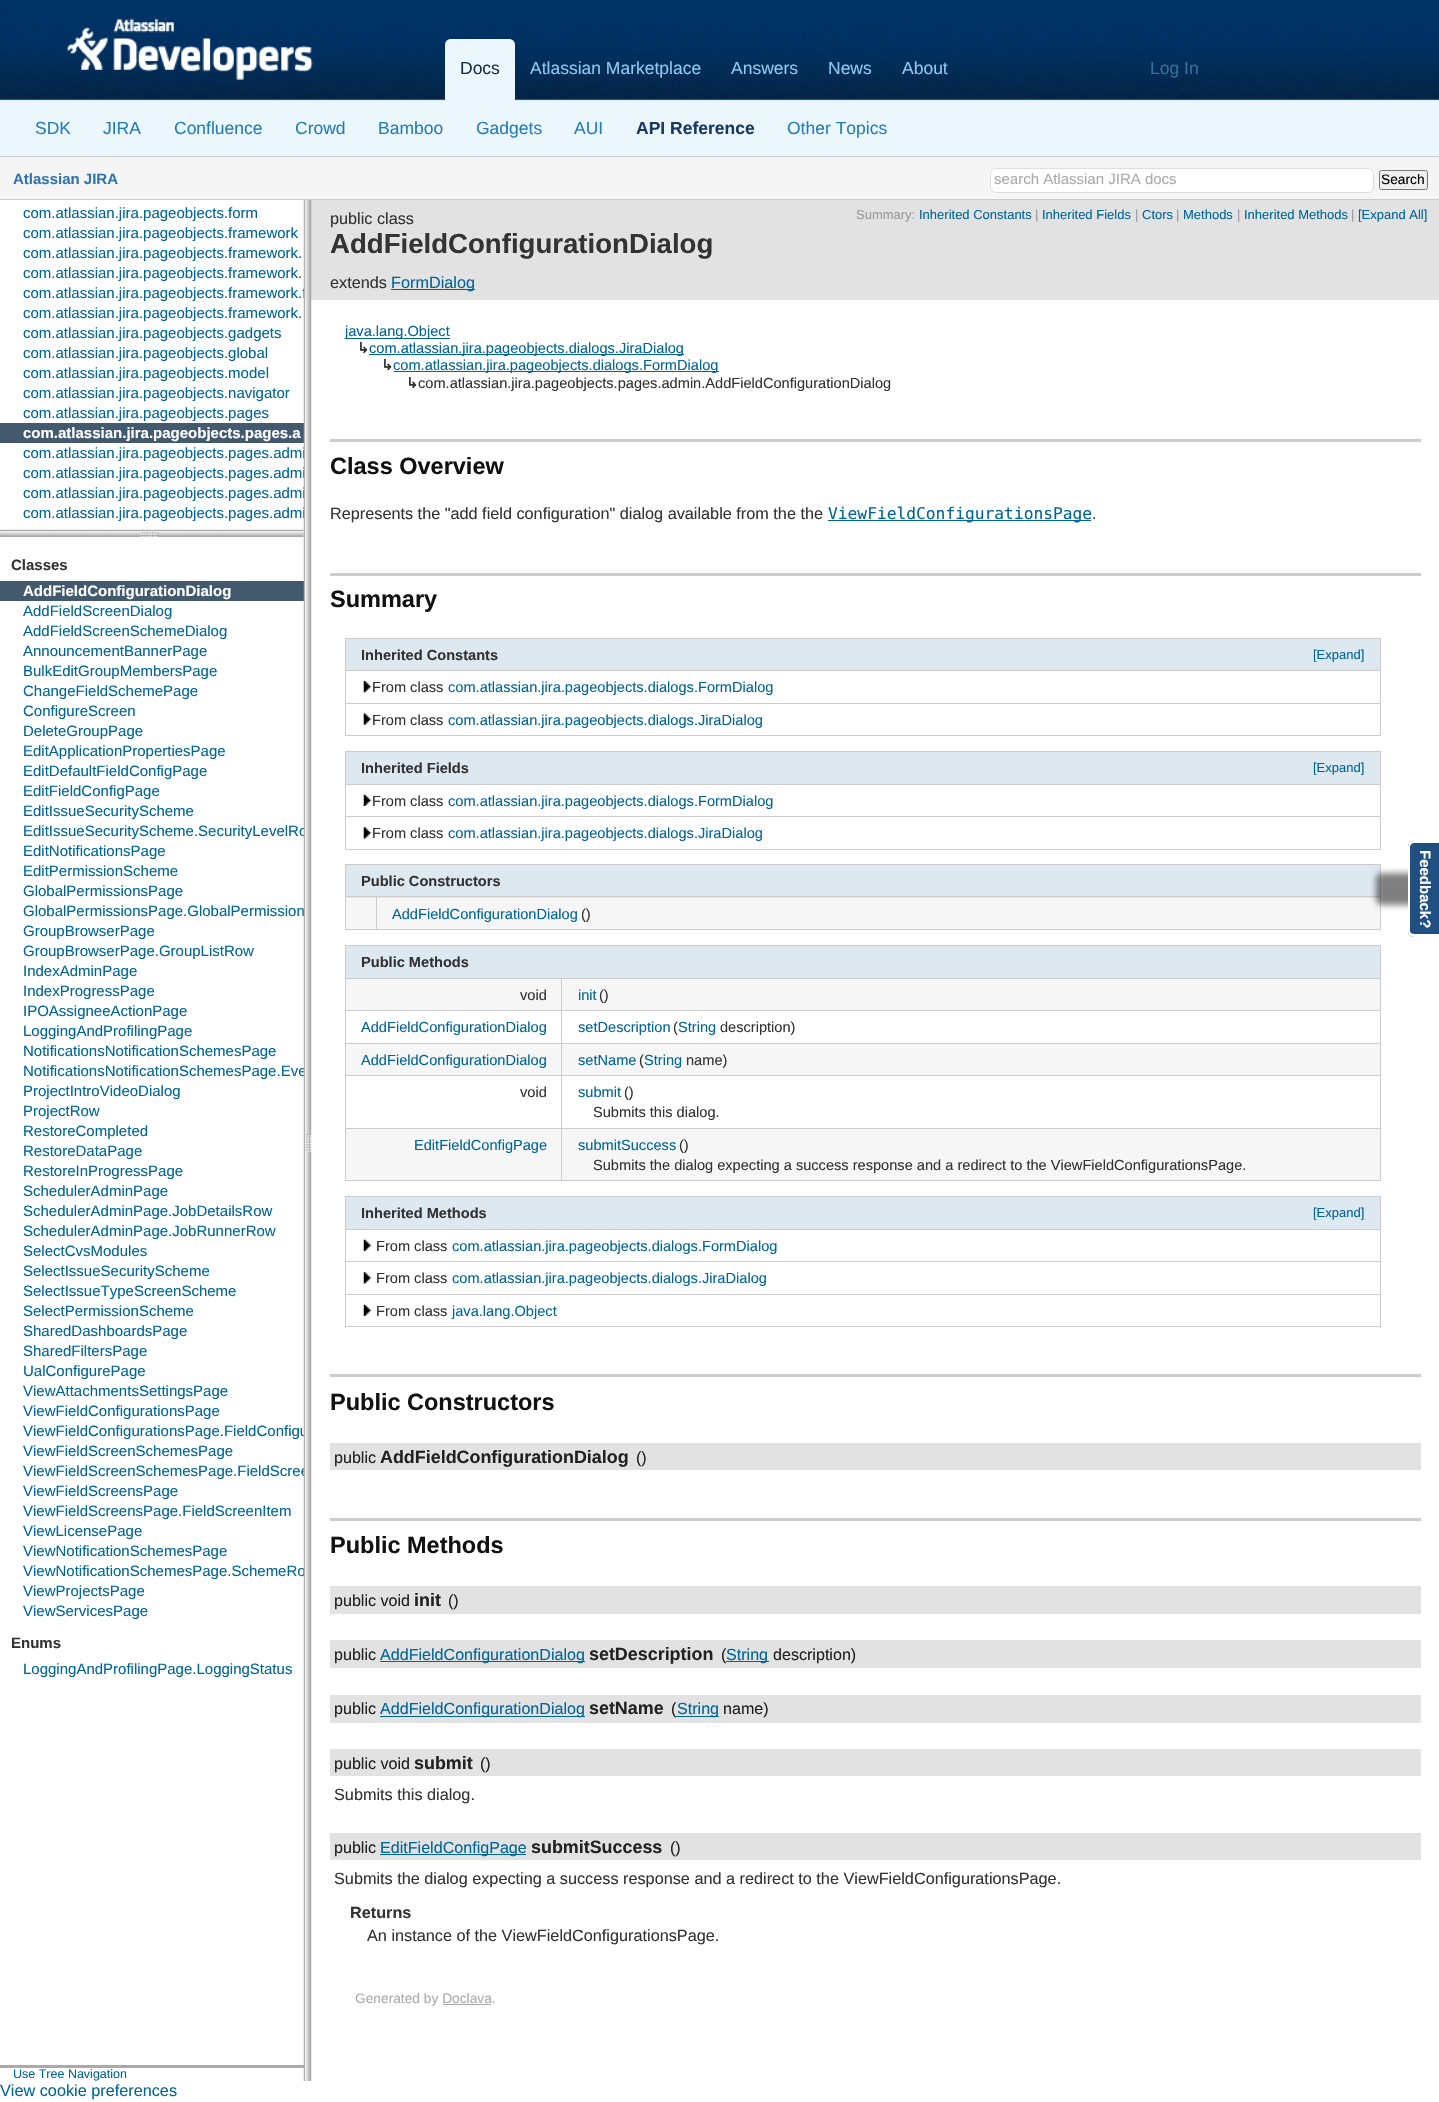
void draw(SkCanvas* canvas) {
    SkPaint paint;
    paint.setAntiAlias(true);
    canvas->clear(0xFFFFFFFF);
    paint.setColor(0xFFECF6FD);
    canvas->drawRect(SkRect::MakeXYWH(0, 101, 1439, 55), paint);
    canvas->drawImageRect(SkImages::DeferredFromEncodedData(SkData::MakeFromFileName("img1.png")), SkRect::MakeXYWH(0, 0, 1439, 101), SkSamplingOptions());
    paint.setColor(0xFFCCCCCC);
    canvas->drawRect(SkRect::MakeXYWH(0, 199, 1439, 1), paint);
    canvas->drawImageRect(SkImages::DeferredFromEncodedData(SkData::MakeFromFileName("img2.png")), SkRect::MakeXYWH(67, 18, 246, 62), SkSamplingOptions());
    paint.setColor(0xFFECF6FD);
    canvas->drawPath(SkPathBuilder().moveTo(451, 39).lineTo(509, 39).cubicTo(512.5f, 39, 515, 41.5f, 515, 45).lineTo(515, 101).lineTo(445, 101).lineTo(445, 45).cubicTo(445, 41.5f, 447.5f, 39, 451, 39).close().detach(), paint);
    SkFont font1(fontMgr->matchFamilyStyle("Liberation Sans", SkFontStyle::Normal()), 17.5f);
    font1.setSubpixel(true);
    paint.setColor(0xFF1A3045);
    canvas->drawString("Docs", 460, 74, font1, paint);
    paint.setColor(0xFF8BC9F2);
    canvas->drawString("Atlassian Marketplace", 530, 74, font1, paint);
    canvas->drawString("Answers", 731, 74, font1, paint);
    canvas->drawString("News", 828, 74, font1, paint);
    canvas->drawString("About", 902, 74, font1, paint);
    paint.setColor(0xFF386D99);
    canvas->drawString("Log In", 1150, 74, font1, paint);
    paint.setColor(0xFF217EB8);
    canvas->drawString("SDK", 35, 134, font1, paint);
    canvas->drawString("JIRA", 103, 134, font1, paint);
    canvas->drawString("Confluence", 174, 134, font1, paint);
    canvas->drawString("Crowd", 295, 134, font1, paint);
    canvas->drawString("Bamboo", 378, 134, font1, paint);
    canvas->drawString("Gadgets", 476, 134, font1, paint);
    canvas->drawString("AUI", 574, 134, font1, paint);
    SkFont font2(fontMgr->matchFamilyStyle("Liberation Sans", SkFontStyle::Bold()), 17.5f);
    font2.setSubpixel(true);
    paint.setColor(0xFF173964);
    canvas->drawString("API Reference", 636, 134, font2, paint);
    paint.setColor(0xFF217EB8);
    canvas->drawString("Other Topics", 787, 134, font1, paint);
    paint.setColor(0xFFF5F5F5);
    canvas->drawRect(SkRect::MakeXYWH(0, 157, 1439, 42), paint);
    paint.setColor(0xFFCCCCCC);
    canvas->drawRect(SkRect::MakeXYWH(0, 156, 1439, 1), paint);
    SkFont font3(fontMgr->matchFamilyStyle("Liberation Sans", SkFontStyle::Bold()), 15);
    font3.setSubpixel(true);
    paint.setColor(0xFF2F74AE);
    canvas->drawString("Atlassian JIRA", 13, 184, font3, paint);
    paint.setColor(0xFFFFFFFF);
    canvas->drawRoundRect(SkRect::MakeXYWH(990.5f, 168.5f, 383, 24), 5.5f, 5.5f, paint);
    paint.setStyle(SkPaint::kStroke_Style);
    paint.setStrokeWidth(1);
    paint.setColor(0xFFDEDEDD);
    canvas->drawRoundRect(SkRect::MakeXYWH(990.5f, 168.5f, 383, 24), 5.5f, 5.5f, paint);
    SkFont font4(fontMgr->matchFamilyStyle("Liberation Sans", SkFontStyle::Normal()), 15);
    font4.setSubpixel(true);
    paint.setStyle(SkPaint::kFill_Style);
    paint.setColor(0xFFAAAAAA);
    canvas->drawString("search Atlassian JIRA docs", 994, 184, font4, paint);
    paint.setColor(0xFFEFEFEF);
    canvas->drawRoundRect(SkRect::MakeXYWH(1379.5f, 170.5f, 48, 19), 2, 2, paint);
    paint.setStyle(SkPaint::kStroke_Style);
    paint.setColor(0xFF767676);
    canvas->drawRoundRect(SkRect::MakeXYWH(1379.5f, 170.5f, 48, 19), 2, 2, paint);
    SkFont font5(fontMgr->matchFamilyStyle("Liberation Sans", SkFontStyle::Normal()), 13.75f);
    font5.setSubpixel(true);
    paint.setStyle(SkPaint::kFill_Style);
    paint.setColor(0xFF000000);
    canvas->drawString("Search", 1381, 184, font5, paint);
    paint.setColor(0xFFAAAAAA);
    canvas->drawRect(SkRect::MakeXYWH(0, 2065, 304, 3), paint);
    paint.setColor(0xFF006699);
    canvas->drawString("com.atlassian.jira.pageobjects.form", 23, 218, font4, paint);
    canvas->drawString("com.atlassian.jira.pageobjects.framework", 23, 238, font4, paint);
    canvas->drawString("com.atlassian.jira.pageobjects.framework.", 23, 258, font4, paint);
    canvas->drawString("com.atlassian.jira.pageobjects.framework.", 23, 278, font4, paint);
    canvas->drawString("com.atlassian.jira.pageobjects.framework.f", 23, 298, font4, paint);
    canvas->drawString("com.atlassian.jira.pageobjects.framework.", 23, 318, font4, paint);
    canvas->drawString("com.atlassian.jira.pageobjects.gadgets", 23, 338, font4, paint);
    canvas->drawString("com.atlassian.jira.pageobjects.global", 23, 358, font4, paint);
    canvas->drawString("com.atlassian.jira.pageobjects.model", 23, 378, font4, paint);
    canvas->drawString("com.atlassian.jira.pageobjects.navigator", 23, 398, font4, paint);
    canvas->drawString("com.atlassian.jira.pageobjects.pages", 23, 418, font4, paint);
    paint.setColor(0xFF435A6E);
    canvas->drawRect(SkRect::MakeXYWH(0, 423, 304, 20), paint);
    paint.setColor(0xFFFFFFFF);
    canvas->drawString("com.atlassian.jira.pageobjects.pages.a", 23, 438, font3, paint);
    paint.setColor(0xFF006699);
    canvas->drawString("com.atlassian.jira.pageobjects.pages.admi", 23, 458, font4, paint);
    canvas->drawString("com.atlassian.jira.pageobjects.pages.admi", 23, 478, font4, paint);
    canvas->drawString("com.atlassian.jira.pageobjects.pages.admi", 23, 498, font4, paint);
    canvas->drawString("com.atlassian.jira.pageobjects.pages.admi", 23, 518, font4, paint);
    canvas->drawImageRect(SkImages::DeferredFromEncodedData(SkData::MakeFromFileName("img3.png")), SkRect::MakeXYWH(0, 529, 304, 9), SkSamplingOptions());
    paint.setColor(0xFF333333);
    canvas->drawString("Classes", 11, 570, font3, paint);
    paint.setColor(0xFF435A6E);
    canvas->drawRect(SkRect::MakeXYWH(0, 581, 304, 20), paint);
    paint.setColor(0xFFFFFFFF);
    canvas->drawString("AddFieldConfigurationDialog", 23, 596, font3, paint);
    paint.setColor(0xFF006699);
    canvas->drawString("AddFieldScreenDialog", 23, 616, font4, paint);
    canvas->drawString("AddFieldScreenSchemeDialog", 23, 636, font4, paint);
    canvas->drawString("AnnouncementBannerPage", 23, 656, font4, paint);
    canvas->drawString("BulkEditGroupMembersPage", 23, 676, font4, paint);
    canvas->drawString("ChangeFieldSchemePage", 23, 696, font4, paint);
    canvas->drawString("ConfigureScreen", 23, 716, font4, paint);
    canvas->drawString("DeleteGroupPage", 23, 736, font4, paint);
    canvas->drawString("EditApplicationPropertiesPage", 23, 756, font4, paint);
    canvas->drawString("EditDefaultFieldConfigPage", 23, 776, font4, paint);
    canvas->drawString("EditFieldConfigPage", 23, 796, font4, paint);
    canvas->drawString("EditIssueSecurityScheme", 23, 816, font4, paint);
    canvas->drawString("EditIssueSecurityScheme.SecurityLevelRo", 23, 836, font4, paint);
    canvas->drawString("EditNotificationsPage", 23, 856, font4, paint);
    canvas->drawString("EditPermissionScheme", 23, 876, font4, paint);
    canvas->drawString("GlobalPermissionsPage", 23, 896, font4, paint);
    canvas->drawString("GlobalPermissionsPage.GlobalPermission", 23, 916, font4, paint);
    canvas->drawString("GroupBrowserPage", 23, 936, font4, paint);
    canvas->drawString("GroupBrowserPage.GroupListRow", 23, 956, font4, paint);
    canvas->drawString("IndexAdminPage", 23, 976, font4, paint);
    canvas->drawString("IndexProgressPage", 23, 996, font4, paint);
    canvas->drawString("IPOAssigneeActionPage", 23, 1016, font4, paint);
    canvas->drawString("LoggingAndProfilingPage", 23, 1036, font4, paint);
    canvas->drawString("NotificationsNotificationSchemesPage", 23, 1056, font4, paint);
    canvas->drawString("NotificationsNotificationSchemesPage.Eve", 23, 1076, font4, paint);
    canvas->drawString("ProjectIntroVideoDialog", 23, 1096, font4, paint);
    canvas->drawString("ProjectRow", 23, 1116, font4, paint);
    canvas->drawString("RestoreCompleted", 23, 1136, font4, paint);
    canvas->drawString("RestoreDataPage", 23, 1156, font4, paint);
    canvas->drawString("RestoreInProgressPage", 23, 1176, font4, paint);
    canvas->drawString("SchedulerAdminPage", 23, 1196, font4, paint);
    canvas->drawString("SchedulerAdminPage.JobDetailsRow", 23, 1216, font4, paint);
    canvas->drawString("SchedulerAdminPage.JobRunnerRow", 23, 1236, font4, paint);
    canvas->drawString("SelectCvsModules", 23, 1256, font4, paint);
    canvas->drawString("SelectIssueSecurityScheme", 23, 1276, font4, paint);
    canvas->drawString("SelectIssueTypeScreenScheme", 23, 1296, font4, paint);
    canvas->drawString("SelectPermissionScheme", 23, 1316, font4, paint);
    canvas->drawString("SharedDashboardsPage", 23, 1336, font4, paint);
    canvas->drawString("SharedFiltersPage", 23, 1356, font4, paint);
    canvas->drawString("UalConfigurePage", 23, 1376, font4, paint);
    canvas->drawString("ViewAttachmentsSettingsPage", 23, 1396, font4, paint);
    canvas->drawString("ViewFieldConfigurationsPage", 23, 1416, font4, paint);
    canvas->drawString("ViewFieldConfigurationsPage.FieldConfigu", 23, 1436, font4, paint);
    canvas->drawString("ViewFieldScreenSchemesPage", 23, 1456, font4, paint);
    canvas->drawString("ViewFieldScreenSchemesPage.FieldScree", 23, 1476, font4, paint);
    canvas->drawString("ViewFieldScreensPage", 23, 1496, font4, paint);
    canvas->drawString("ViewFieldScreensPage.FieldScreenItem", 23, 1516, font4, paint);
    canvas->drawString("ViewLicensePage", 23, 1536, font4, paint);
    canvas->drawString("ViewNotificationSchemesPage", 23, 1556, font4, paint);
    canvas->drawString("ViewNotificationSchemesPage.SchemeRo", 23, 1576, font4, paint);
    canvas->drawString("ViewProjectsPage", 23, 1596, font4, paint);
    canvas->drawString("ViewServicesPage", 23, 1616, font4, paint);
    paint.setColor(0xFF333333);
    canvas->drawString("Enums", 11, 1648, font3, paint);
    paint.setColor(0xFF006699);
    canvas->drawString("LoggingAndProfilingPage.LoggingStatus", 23, 1674, font4, paint);
    paint.setColor(0xFFE2E2E2);
    canvas->drawRect(SkRect::MakeXYWH(311, 200, 1128, 100), paint);
    canvas->drawImageRect(SkImages::DeferredFromEncodedData(SkData::MakeFromFileName("img4.png")), SkRect::MakeXYWH(303, 200, 9, 1881), SkSamplingOptions());
    SkFont font6(fontMgr->matchFamilyStyle("Liberation Sans", SkFontStyle::Normal()), 12.5f);
    font6.setSubpixel(true);
    paint.setColor(0xFF006699);
    canvas->drawString("Use Tree Navigation", 13, 2078, font6, paint);
    SkFont font7(fontMgr->matchFamilyStyle("Liberation Sans", SkFontStyle::Normal()), 16.25f);
    font7.setSubpixel(true);
    paint.setColor(0xFF333333);
    canvas->drawString("public class", 330, 224, font7, paint);
    SkFont font8(fontMgr->matchFamilyStyle("Liberation Sans", SkFontStyle::Bold()), 27.6f);
    font8.setSubpixel(true);
    canvas->drawString("AddFieldConfigurationDialog", 330, 253, font8, paint);
    canvas->drawString("extends", 330, 288, font7, paint);
    paint.setColor(0xFF006699);
    canvas->drawRect(SkRect::MakeXYWH(391, 289, 84, 1), paint);
    canvas->drawString("FormDialog", 391, 288, font7, paint);
    SkFont font9(fontMgr->matchFamilyStyle("Liberation Sans", SkFontStyle::Normal()), 13);
    font9.setSubpixel(true);
    paint.setColor(0xFF999999);
    canvas->drawString("Summary:", 856, 219, font9, paint);
    paint.setColor(0xFF006699);
    canvas->drawString("Inherited Constants", 919, 219, font9, paint);
    paint.setColor(0xFF999999);
    canvas->drawString("|", 1035, 219, font9, paint);
    paint.setColor(0xFF006699);
    canvas->drawString("Inherited Fields", 1042, 219, font9, paint);
    paint.setColor(0xFF999999);
    canvas->drawString("|", 1135, 219, font9, paint);
    paint.setColor(0xFF006699);
    canvas->drawString("Ctors", 1142, 219, font9, paint);
    paint.setColor(0xFF999999);
    canvas->drawString("|", 1176, 219, font9, paint);
    paint.setColor(0xFF006699);
    canvas->drawString("Methods", 1183, 219, font9, paint);
    paint.setColor(0xFF999999);
    canvas->drawString("|", 1237, 219, font9, paint);
    paint.setColor(0xFF006699);
    canvas->drawString("Inherited Methods", 1244, 219, font9, paint);
    paint.setColor(0xFF999999);
    canvas->drawString("|", 1351, 219, font9, paint);
    paint.setColor(0xFF006699);
    canvas->drawString("[Expand All]", 1358, 219, font9, paint);
    canvas->drawRect(SkRect::MakeXYWH(345, 338, 105, 1), paint);
    SkFont font10(fontMgr->matchFamilyStyle("Liberation Sans", SkFontStyle::Normal()), 14.6f);
    font10.setSubpixel(true);
    canvas->drawString("java.lang.Object", 345, 336, font10, paint);
    SkFont font11(fontMgr->matchFamilyStyle("DejaVu Sans", SkFontStyle::Bold()), 14.6f);
    font11.setSubpixel(true);
    paint.setColor(0xFF333333);
    canvas->drawString("↳", 357, 353, font11, paint);
    paint.setColor(0xFF006699);
    canvas->drawRect(SkRect::MakeXYWH(369, 354, 315, 1), paint);
    canvas->drawString("com.atlassian.jira.pageobjects.dialogs.JiraDialog", 369, 353, font10, paint);
    paint.setColor(0xFF333333);
    canvas->drawString("↳", 381, 370, font11, paint);
    paint.setColor(0xFF006699);
    canvas->drawRect(SkRect::MakeXYWH(394, 371, 325, 1), paint);
    canvas->drawString("com.atlassian.jira.pageobjects.dialogs.FormDialog", 393, 370, font10, paint);
    paint.setColor(0xFF333333);
    canvas->drawString("↳", 406, 388, font11, paint);
    canvas->drawString("com.atlassian.jira.pageobjects.pages.admin.AddFieldConfigurationDialog", 418, 388, font10, paint);
    paint.setColor(0xFFCCCCCC);
    canvas->drawRect(SkRect::MakeXYWH(330, 439, 1091, 3), paint);
    SkFont font12(fontMgr->matchFamilyStyle("Liberation Sans", SkFontStyle::Bold()), 23.5f);
    font12.setSubpixel(true);
    paint.setColor(0xFF111111);
    canvas->drawString("Class Overview", 330, 474, font12, paint);
    paint.setColor(0xFF333333);
    canvas->drawString("Represents the \"add field configuration\" dialog available from the the", 330, 519, font7, paint);
    paint.setColor(0xFF006699);
    canvas->drawRect(SkRect::MakeXYWH(828, 520, 263, 1), paint);
    SkFont font13(fontMgr->matchFamilyStyle("DejaVu Sans Mono", SkFontStyle::Normal()), 16.25f);
    font13.setSubpixel(true);
    canvas->drawString("ViewFieldConfigurationsPage", 828, 519, font13, paint);
    paint.setColor(0xFF333333);
    canvas->drawString(".", 1092, 519, font7, paint);
    paint.setColor(0xFFCCCCCC);
    canvas->drawRect(SkRect::MakeXYWH(330, 573, 1091, 3), paint);
    paint.setColor(0xFF111111);
    canvas->drawString("Summary", 330, 607, font12, paint);
    paint.setColor(0xFFDEE8F1);
    canvas->drawRect(SkRect::MakeXYWH(346, 639, 1034, 31), paint);
    paint.setColor(0xFFCCCCCC);
    canvas->drawRect(SkRect::MakeXYWH(345, 638, 1036, 1), paint);
    canvas->drawRect(SkRect::MakeXYWH(345, 670, 1036, 1), paint);
    canvas->drawRect(SkRect::MakeXYWH(345, 703, 1036, 1), paint);
    canvas->drawRect(SkRect::MakeXYWH(1380, 703, 1, 33), paint);
    canvas->drawRect(SkRect::MakeXYWH(1380, 670, 1, 34), paint);
    canvas->drawRect(SkRect::MakeXYWH(1380, 638, 1, 33), paint);
    canvas->drawRect(SkRect::MakeXYWH(345, 735, 1036, 1), paint);
    canvas->drawRect(SkRect::MakeXYWH(345, 703, 1, 33), paint);
    canvas->drawRect(SkRect::MakeXYWH(345, 670, 1, 34), paint);
    canvas->drawRect(SkRect::MakeXYWH(345, 638, 1, 33), paint);
    SkFont font14(fontMgr->matchFamilyStyle("Liberation Sans", SkFontStyle::Bold()), 14.6f);
    font14.setSubpixel(true);
    paint.setColor(0xFF333333);
    canvas->drawString("Inherited Constants", 361, 660, font14, paint);
    paint.setColor(0xFF006699);
    canvas->drawString("[Expand]", 1313, 659, font9, paint);
    canvas->drawImageRect(SkImages::DeferredFromEncodedData(SkData::MakeFromFileName("img5.png")), SkRect::MakeXYWH(363, 681, 9, 12), SkSamplingOptions());
    paint.setColor(0xFF333333);
    canvas->drawString("From class", 372, 692, font10, paint);
    paint.setColor(0xFF006699);
    canvas->drawString("com.atlassian.jira.pageobjects.dialogs.FormDialog", 448, 692, font10, paint);
    canvas->drawImageRect(SkImages::DeferredFromEncodedData(SkData::MakeFromFileName("img6.png")), SkRect::MakeXYWH(363, 713, 9, 12), SkSamplingOptions());
    paint.setColor(0xFF333333);
    canvas->drawString("From class", 372, 725, font10, paint);
    paint.setColor(0xFF006699);
    canvas->drawString("com.atlassian.jira.pageobjects.dialogs.JiraDialog", 448, 725, font10, paint);
    paint.setColor(0xFFDEE8F1);
    canvas->drawRect(SkRect::MakeXYWH(346, 752, 1034, 32), paint);
    paint.setColor(0xFFCCCCCC);
    canvas->drawRect(SkRect::MakeXYWH(345, 751, 1036, 1), paint);
    canvas->drawRect(SkRect::MakeXYWH(345, 784, 1036, 1), paint);
    canvas->drawRect(SkRect::MakeXYWH(345, 816, 1036, 1), paint);
    canvas->drawRect(SkRect::MakeXYWH(1380, 816, 1, 34), paint);
    canvas->drawRect(SkRect::MakeXYWH(1380, 784, 1, 34), paint);
    canvas->drawRect(SkRect::MakeXYWH(1380, 751, 1, 34), paint);
    canvas->drawRect(SkRect::MakeXYWH(345, 849, 1036, 1), paint);
    canvas->drawRect(SkRect::MakeXYWH(345, 816, 1, 34), paint);
    canvas->drawRect(SkRect::MakeXYWH(345, 784, 1, 34), paint);
    canvas->drawRect(SkRect::MakeXYWH(345, 751, 1, 34), paint);
    paint.setColor(0xFF333333);
    canvas->drawString("Inherited Fields", 361, 773, font14, paint);
    paint.setColor(0xFF006699);
    canvas->drawString("[Expand]", 1313, 772, font9, paint);
    canvas->drawImageRect(SkImages::DeferredFromEncodedData(SkData::MakeFromFileName("img7.png")), SkRect::MakeXYWH(363, 794, 9, 12), SkSamplingOptions());
    paint.setColor(0xFF333333);
    canvas->drawString("From class", 372, 806, font10, paint);
    paint.setColor(0xFF006699);
    canvas->drawString("com.atlassian.jira.pageobjects.dialogs.FormDialog", 448, 806, font10, paint);
    canvas->drawImageRect(SkImages::DeferredFromEncodedData(SkData::MakeFromFileName("img8.png")), SkRect::MakeXYWH(363, 827, 9, 12), SkSamplingOptions());
    paint.setColor(0xFF333333);
    canvas->drawString("From class", 372, 838, font10, paint);
    paint.setColor(0xFF006699);
    canvas->drawString("com.atlassian.jira.pageobjects.dialogs.JiraDialog", 448, 838, font10, paint);
    paint.setColor(0xFFDEE8F1);
    canvas->drawRect(SkRect::MakeXYWH(346, 865, 1034, 33), paint);
    paint.setColor(0xFFCCCCCC);
    canvas->drawRect(SkRect::MakeXYWH(345, 864, 1036, 1), paint);
    canvas->drawRect(SkRect::MakeXYWH(376, 896, 1005, 1), paint);
    canvas->drawRect(SkRect::MakeXYWH(1380, 896, 1, 34), paint);
    canvas->drawRect(SkRect::MakeXYWH(1380, 864, 1, 34), paint);
    paint.setColor(0xFFF6F6F6);
    canvas->drawRect(SkRect::MakeXYWH(346, 898, 1034, 31), paint);
    paint.setColor(0xFFCCCCCC);
    canvas->drawRect(SkRect::MakeXYWH(376, 929, 1005, 1), paint);
    canvas->drawRect(SkRect::MakeXYWH(376, 896, 1, 34), paint);
    canvas->drawRect(SkRect::MakeXYWH(345, 896, 33, 1), paint);
    canvas->drawRect(SkRect::MakeXYWH(345, 929, 33, 1), paint);
    canvas->drawRect(SkRect::MakeXYWH(345, 896, 1, 34), paint);
    canvas->drawRect(SkRect::MakeXYWH(345, 864, 1, 34), paint);
    paint.setColor(0xFF333333);
    canvas->drawString("Public Constructors", 361, 886, font14, paint);
    paint.setColor(0xFF006699);
    canvas->drawString("AddFieldConfigurationDialog", 392, 919, font10, paint);
    paint.setColor(0xFF333333);
    canvas->drawString("()", 581, 919, font10, paint);
    paint.setColor(0xFFDEE8F1);
    canvas->drawRect(SkRect::MakeXYWH(346, 946, 1034, 32), paint);
    paint.setColor(0xFFCCCCCC);
    canvas->drawRect(SkRect::MakeXYWH(345, 945, 1036, 1), paint);
    canvas->drawRect(SkRect::MakeXYWH(561, 978, 820, 1), paint);
    canvas->drawRect(SkRect::MakeXYWH(561, 1010, 820, 1), paint);
    canvas->drawRect(SkRect::MakeXYWH(561, 1043, 820, 1), paint);
    canvas->drawRect(SkRect::MakeXYWH(561, 1075, 820, 1), paint);
    canvas->drawRect(SkRect::MakeXYWH(561, 1128, 820, 1), paint);
    canvas->drawRect(SkRect::MakeXYWH(1380, 1128, 1, 53), paint);
    canvas->drawRect(SkRect::MakeXYWH(1380, 1075, 1, 54), paint);
    canvas->drawRect(SkRect::MakeXYWH(1380, 1043, 1, 33), paint);
    canvas->drawRect(SkRect::MakeXYWH(1380, 1010, 1, 34), paint);
    canvas->drawRect(SkRect::MakeXYWH(1380, 978, 1, 33), paint);
    canvas->drawRect(SkRect::MakeXYWH(1380, 945, 1, 34), paint);
    paint.setColor(0xFFF6F6F6);
    canvas->drawRect(SkRect::MakeXYWH(346, 979, 1034, 31), paint);
    canvas->drawRect(SkRect::MakeXYWH(346, 1044, 1034, 31), paint);
    canvas->drawRect(SkRect::MakeXYWH(346, 1129, 1034, 51), paint);
    paint.setColor(0xFFCCCCCC);
    canvas->drawRect(SkRect::MakeXYWH(561, 1180, 820, 1), paint);
    canvas->drawRect(SkRect::MakeXYWH(561, 1128, 1, 53), paint);
    canvas->drawRect(SkRect::MakeXYWH(345, 1128, 218, 1), paint);
    canvas->drawRect(SkRect::MakeXYWH(561, 1075, 1, 54), paint);
    canvas->drawRect(SkRect::MakeXYWH(345, 1075, 218, 1), paint);
    canvas->drawRect(SkRect::MakeXYWH(561, 1043, 1, 33), paint);
    canvas->drawRect(SkRect::MakeXYWH(345, 1043, 218, 1), paint);
    canvas->drawRect(SkRect::MakeXYWH(561, 1010, 1, 34), paint);
    canvas->drawRect(SkRect::MakeXYWH(345, 1010, 218, 1), paint);
    canvas->drawRect(SkRect::MakeXYWH(561, 978, 1, 33), paint);
    canvas->drawRect(SkRect::MakeXYWH(345, 978, 218, 1), paint);
    canvas->drawRect(SkRect::MakeXYWH(345, 1180, 218, 1), paint);
    canvas->drawRect(SkRect::MakeXYWH(345, 1128, 1, 53), paint);
    canvas->drawRect(SkRect::MakeXYWH(345, 1075, 1, 54), paint);
    canvas->drawRect(SkRect::MakeXYWH(345, 1043, 1, 33), paint);
    canvas->drawRect(SkRect::MakeXYWH(345, 1010, 1, 34), paint);
    canvas->drawRect(SkRect::MakeXYWH(345, 978, 1, 33), paint);
    canvas->drawRect(SkRect::MakeXYWH(345, 945, 1, 34), paint);
    paint.setColor(0xFF333333);
    canvas->drawString("Public Methods", 361, 967, font14, paint);
    canvas->drawString("void", 520, 1000, font10, paint);
    paint.setColor(0xFF006699);
    canvas->drawString("init", 578, 1000, font10, paint);
    paint.setColor(0xFF333333);
    canvas->drawString("()", 599, 1000, font10, paint);
    paint.setColor(0xFF006699);
    canvas->drawString("AddFieldConfigurationDialog", 361, 1032, font10, paint);
    canvas->drawString("setDescription", 578, 1032, font10, paint);
    paint.setColor(0xFF333333);
    canvas->drawString("(", 673, 1032, font10, paint);
    paint.setColor(0xFF006699);
    canvas->drawString("String", 678, 1032, font10, paint);
    paint.setColor(0xFF333333);
    canvas->drawString("description)", 720, 1032, font10, paint);
    paint.setColor(0xFF006699);
    canvas->drawString("AddFieldConfigurationDialog", 361, 1065, font10, paint);
    canvas->drawString("setName", 578, 1065, font10, paint);
    paint.setColor(0xFF333333);
    canvas->drawString("(", 639, 1065, font10, paint);
    paint.setColor(0xFF006699);
    canvas->drawString("String", 644, 1065, font10, paint);
    paint.setColor(0xFF333333);
    canvas->drawString("name)", 686, 1065, font10, paint);
    canvas->drawString("void", 520, 1097, font10, paint);
    paint.setColor(0xFF006699);
    canvas->drawString("submit", 578, 1097, font10, paint);
    paint.setColor(0xFF333333);
    canvas->drawString("()", 624, 1097, font10, paint);
    canvas->drawString("Submits this dialog.", 593, 1117, font10, paint);
    paint.setColor(0xFF006699);
    canvas->drawString("EditFieldConfigPage", 414, 1150, font10, paint);
    canvas->drawString("submitSuccess", 578, 1150, font10, paint);
    paint.setColor(0xFF333333);
    canvas->drawString("()", 679, 1150, font10, paint);
    canvas->drawString("Submits the dialog expecting a success response and a redirect to the ViewFieldConfigurationsPage.", 593, 1170, font10, paint);
    paint.setColor(0xFFDEE8F1);
    canvas->drawRect(SkRect::MakeXYWH(346, 1197, 1034, 32), paint);
    paint.setColor(0xFFCCCCCC);
    canvas->drawRect(SkRect::MakeXYWH(345, 1196, 1036, 1), paint);
    canvas->drawRect(SkRect::MakeXYWH(345, 1229, 1036, 1), paint);
    canvas->drawRect(SkRect::MakeXYWH(345, 1261, 1036, 1), paint);
    canvas->drawRect(SkRect::MakeXYWH(345, 1294, 1036, 1), paint);
    canvas->drawRect(SkRect::MakeXYWH(1380, 1294, 1, 34), paint);
    canvas->drawRect(SkRect::MakeXYWH(1380, 1261, 1, 34), paint);
    canvas->drawRect(SkRect::MakeXYWH(1380, 1229, 1, 34), paint);
    canvas->drawRect(SkRect::MakeXYWH(1380, 1196, 1, 34), paint);
    canvas->drawRect(SkRect::MakeXYWH(345, 1326, 1036, 1), paint);
    canvas->drawRect(SkRect::MakeXYWH(345, 1294, 1, 34), paint);
    canvas->drawRect(SkRect::MakeXYWH(345, 1261, 1, 34), paint);
    canvas->drawRect(SkRect::MakeXYWH(345, 1229, 1, 34), paint);
    canvas->drawRect(SkRect::MakeXYWH(345, 1196, 1, 34), paint);
    paint.setColor(0xFF333333);
    canvas->drawString("Inherited Methods", 361, 1218, font14, paint);
    paint.setColor(0xFF006699);
    canvas->drawString("[Expand]", 1313, 1217, font9, paint);
    canvas->drawImageRect(SkImages::DeferredFromEncodedData(SkData::MakeFromFileName("img7.png")), SkRect::MakeXYWH(363, 1239, 9, 12), SkSamplingOptions());
    paint.setColor(0xFF333333);
    canvas->drawString("From class", 376, 1251, font10, paint);
    paint.setColor(0xFF006699);
    canvas->drawString("com.atlassian.jira.pageobjects.dialogs.FormDialog", 452, 1251, font10, paint);
    canvas->drawImageRect(SkImages::DeferredFromEncodedData(SkData::MakeFromFileName("img8.png")), SkRect::MakeXYWH(363, 1272, 9, 12), SkSamplingOptions());
    paint.setColor(0xFF333333);
    canvas->drawString("From class", 376, 1283, font10, paint);
    paint.setColor(0xFF006699);
    canvas->drawString("com.atlassian.jira.pageobjects.dialogs.JiraDialog", 452, 1283, font10, paint);
    canvas->drawImageRect(SkImages::DeferredFromEncodedData(SkData::MakeFromFileName("img7.png")), SkRect::MakeXYWH(363, 1304, 9, 12), SkSamplingOptions());
    paint.setColor(0xFF333333);
    canvas->drawString("From class", 376, 1316, font10, paint);
    paint.setColor(0xFF006699);
    canvas->drawString("java.lang.Object", 452, 1316, font10, paint);
    paint.setColor(0xFFCCCCCC);
    canvas->drawRect(SkRect::MakeXYWH(330, 1374, 1091, 3), paint);
    paint.setColor(0xFF111111);
    canvas->drawString("Public Constructors", 330, 1410, font12, paint);
    paint.setColor(0xFFE2E2E2);
    canvas->drawRect(SkRect::MakeXYWH(330, 1443, 1091, 27), paint);
    SkFont font15(fontMgr->matchFamilyStyle("Liberation Sans", SkFontStyle::Normal()), 16.1f);
    font15.setSubpixel(true);
    paint.setColor(0xFF222222);
    canvas->drawString("public", 334, 1463, font15, paint);
    SkFont font16(fontMgr->matchFamilyStyle("Liberation Sans", SkFontStyle::Bold()), 17.9f);
    font16.setSubpixel(true);
    canvas->drawString("AddFieldConfigurationDialog", 380, 1463, font16, paint);
    canvas->drawString("()", 636, 1463, font15, paint);
    paint.setColor(0xFFCCCCCC);
    canvas->drawRect(SkRect::MakeXYWH(330, 1518, 1091, 3), paint);
    paint.setColor(0xFF111111);
    canvas->drawString("Public Methods", 330, 1553, font12, paint);
    paint.setColor(0xFFE2E2E2);
    canvas->drawRect(SkRect::MakeXYWH(330, 1586, 1091, 28), paint);
    paint.setColor(0xFF222222);
    canvas->drawString("public void", 334, 1606, font15, paint);
    canvas->drawString("init", 414, 1606, font16, paint);
    canvas->drawString("()", 448, 1606, font15, paint);
    paint.setColor(0xFFE2E2E2);
    canvas->drawRect(SkRect::MakeXYWH(330, 1640, 1091, 28), paint);
    paint.setColor(0xFF222222);
    canvas->drawString("public", 334, 1660, font15, paint);
    paint.setColor(0xFF006699);
    canvas->drawRect(SkRect::MakeXYWH(380, 1661, 205, 1), paint);
    canvas->drawString("AddFieldConfigurationDialog", 380, 1660, font15, paint);
    paint.setColor(0xFF222222);
    canvas->drawString("setDescription", 589, 1660, font16, paint);
    canvas->drawString("(", 721, 1660, font15, paint);
    paint.setColor(0xFF006699);
    canvas->drawRect(SkRect::MakeXYWH(726, 1661, 43, 1), paint);
    canvas->drawString("String", 726, 1660, font15, paint);
    paint.setColor(0xFF222222);
    canvas->drawString("description)", 773, 1660, font15, paint);
    paint.setColor(0xFFE2E2E2);
    canvas->drawRect(SkRect::MakeXYWH(330, 1695, 1091, 28), paint);
    paint.setColor(0xFF222222);
    canvas->drawString("public", 334, 1714, font15, paint);
    paint.setColor(0xFF006699);
    canvas->drawRect(SkRect::MakeXYWH(380, 1716, 205, 1), paint);
    canvas->drawString("AddFieldConfigurationDialog", 380, 1714, font15, paint);
    paint.setColor(0xFF222222);
    canvas->drawString("setName", 589, 1714, font16, paint);
    canvas->drawString("(", 671, 1714, font15, paint);
    paint.setColor(0xFF006699);
    canvas->drawRect(SkRect::MakeXYWH(676, 1716, 43, 1), paint);
    canvas->drawString("String", 677, 1714, font15, paint);
    paint.setColor(0xFF222222);
    canvas->drawString("name)", 723, 1714, font15, paint);
    paint.setColor(0xFFE2E2E2);
    canvas->drawRect(SkRect::MakeXYWH(330, 1749, 1091, 27), paint);
    paint.setColor(0xFF222222);
    canvas->drawString("public void", 334, 1769, font15, paint);
    canvas->drawString("submit", 414, 1769, font16, paint);
    canvas->drawString("()", 480, 1769, font15, paint);
    paint.setColor(0xFF333333);
    canvas->drawString("Submits this dialog.", 334, 1800, font7, paint);
    paint.setColor(0xFFE2E2E2);
    canvas->drawRect(SkRect::MakeXYWH(330, 1833, 1091, 27), paint);
    paint.setColor(0xFF222222);
    canvas->drawString("public", 334, 1853, font15, paint);
    paint.setColor(0xFF006699);
    canvas->drawRect(SkRect::MakeXYWH(380, 1854, 146, 1), paint);
    canvas->drawString("EditFieldConfigPage", 380, 1853, font15, paint);
    paint.setColor(0xFF222222);
    canvas->drawString("submitSuccess", 531, 1853, font16, paint);
    canvas->drawString("()", 670, 1853, font15, paint);
    paint.setColor(0xFF333333);
    canvas->drawString("Submits the dialog expecting a success response and a redirect to the ViewFieldConfigurationsPage.", 334, 1884, font7, paint);
    SkFont font17(fontMgr->matchFamilyStyle("Liberation Sans", SkFontStyle::Bold()), 16.25f);
    font17.setSubpixel(true);
    canvas->drawString("Returns", 350, 1918, font17, paint);
    canvas->drawString("An instance of the ViewFieldConfigurationsPage.", 367, 1941, font7, paint);
    paint.setColor(0xFFAAAAAA);
    canvas->drawString("Generated by Doclava.", 355, 2003, font5, paint);
    canvas->drawRect(SkRect::MakeXYWH(443, 2004, 48, 1), paint);
    paint.setColor(0x80000000);
    paint.setMaskFilter(SkMaskFilter::MakeBlur(kNormal_SkBlurStyle, 3));
    canvas->drawRoundRect(SkRect::MakeXYWH(1376, 873, 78, 32), 6, 6, paint);
    paint.setMaskFilter(nullptr);
    paint.setColor(0xFF205081);
    canvas->drawPath(SkPathBuilder().moveTo(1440, 841).lineTo(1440, 937).lineTo(1414, 937).cubicTo(1410, 937, 1408, 934, 1408, 931).lineTo(1408, 847).cubicTo(1408, 844, 1410, 841, 1414, 841).close().detach(), paint);
    paint.setColor(0xFFFFFFFF);
    canvas->drawPath(SkPathBuilder(SkPathFillType::kEvenOdd).moveTo(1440, 841).lineTo(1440, 937).lineTo(1414, 937).cubicTo(1410, 937, 1408, 934, 1408, 931).lineTo(1408, 847).cubicTo(1408, 844, 1410, 841, 1414, 841).close().moveTo(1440, 843).lineTo(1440, 934).lineTo(1414, 934).cubicTo(1412, 934, 1410, 933, 1410, 931).lineTo(1410, 847).cubicTo(1410, 845, 1412, 843, 1414, 843).close().detach(), paint);
    canvas->save();
    canvas->rotate(90, 1420, 850);
    canvas->drawString("Feedback?", 1420, 850, font3, paint);
    canvas->restore();
    paint.setColor(0xFF006699);
    canvas->drawString("View cookie preferences", 0, 2096, font7, paint);
}
